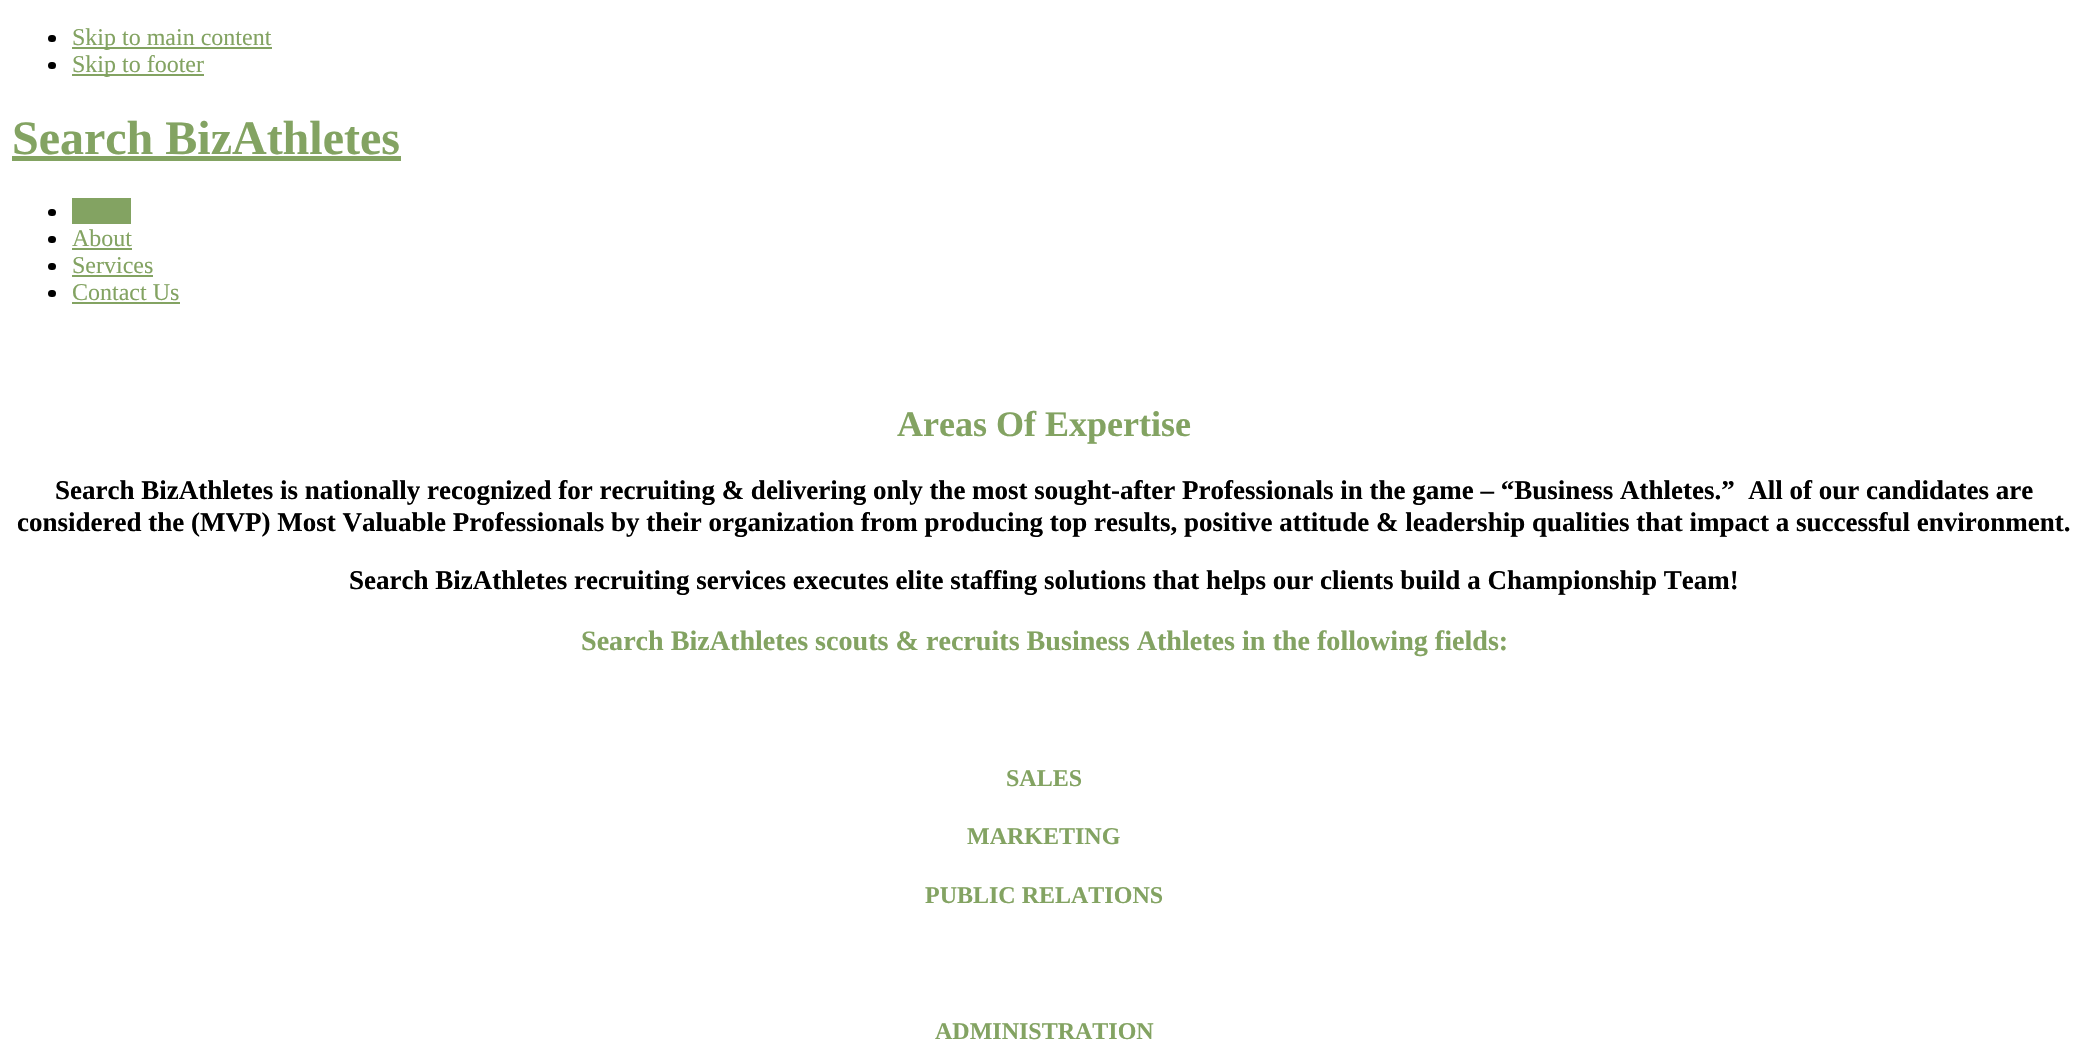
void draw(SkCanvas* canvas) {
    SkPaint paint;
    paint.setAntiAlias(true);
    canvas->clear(0xFFFFFFFF);
    paint.setColor(0xFF000000);
    canvas->drawRoundRect(SkRect::MakeXYWH(48, 35, 8, 7), 3.5f, 3.5f, paint);
    paint.setColor(0xFF83A362);
    canvas->drawRect(SkRect::MakeXYWH(72, 47, 200, 2), paint);
    SkFont font1(fontMgr->matchFamilyStyle("Liberation Serif", SkFontStyle::Normal()), 24);
    font1.setSubpixel(true);
    canvas->drawString("Skip to main content", 72, 45, font1, paint);
    paint.setColor(0xFF000000);
    canvas->drawRoundRect(SkRect::MakeXYWH(48, 62, 8, 7), 3.5f, 3.5f, paint);
    paint.setColor(0xFF83A362);
    canvas->drawRect(SkRect::MakeXYWH(72, 74, 132, 2), paint);
    canvas->drawString("Skip to footer", 72, 72, font1, paint);
    SkFont font2(fontMgr->matchFamilyStyle("Liberation Serif", SkFontStyle::Bold()), 48);
    font2.setSubpixel(true);
    canvas->drawString("Search BizAthletes", 12, 154, font2, paint);
    canvas->drawRect(SkRect::MakeXYWH(12, 156, 389, 5), paint);
    paint.setColor(0xFF000000);
    canvas->drawRoundRect(SkRect::MakeXYWH(48, 209, 8, 7), 3.5f, 3.5f, paint);
    paint.setColor(0xFF83A362);
    canvas->drawRect(SkRect::MakeXYWH(72, 198, 59, 26), paint);
    paint.setColor(0xFF000000);
    canvas->drawRoundRect(SkRect::MakeXYWH(48, 236, 8, 7), 3.5f, 3.5f, paint);
    paint.setColor(0xFF83A362);
    canvas->drawString("About", 72, 246, font1, paint);
    canvas->drawRect(SkRect::MakeXYWH(72, 248, 60, 2), paint);
    paint.setColor(0xFF000000);
    canvas->drawRoundRect(SkRect::MakeXYWH(48, 263, 8, 7), 3.5f, 3.5f, paint);
    paint.setColor(0xFF83A362);
    canvas->drawString("Services", 72, 273, font1, paint);
    canvas->drawRect(SkRect::MakeXYWH(72, 275, 81, 2), paint);
    paint.setColor(0xFF000000);
    canvas->drawRoundRect(SkRect::MakeXYWH(48, 290, 8, 7), 3.5f, 3.5f, paint);
    paint.setColor(0xFF83A362);
    canvas->drawString("Contact Us", 72, 300, font1, paint);
    canvas->drawRect(SkRect::MakeXYWH(72, 302, 108, 2), paint);
    SkFont font3(fontMgr->matchFamilyStyle("Liberation Serif", SkFontStyle::Bold()), 36);
    font3.setSubpixel(true);
    canvas->drawString("Areas Of Expertise", 897, 436, font3, paint);
    SkFont font4(fontMgr->matchFamilyStyle("Liberation Serif", SkFontStyle::Bold()), 27);
    font4.setSubpixel(true);
    paint.setColor(0xFF000000);
    canvas->drawString("Search BizAthletes is nationally recognized for recruiting & delivering only the most sought-after Professionals in the game – “Business Athletes.”  All of our candidates are", 55, 499, font4, paint);
    canvas->drawString("considered the (MVP) Most Valuable Professionals by their organization from producing top results, positive attitude & leadership qualities that impact a successful environment.", 17, 531, font4, paint);
    canvas->drawString("Search BizAthletes recruiting services executes elite staffing solutions that helps our clients build a Championship Team!", 349, 589, font4, paint);
    SkFont font5(fontMgr->matchFamilyStyle("Liberation Serif", SkFontStyle::Bold()), 28.1f);
    font5.setSubpixel(true);
    paint.setColor(0xFF83A362);
    canvas->drawString("Search BizAthletes scouts & recruits Business Athletes in the following fields:", 581, 650, font5, paint);
    SkFont font6(fontMgr->matchFamilyStyle("Liberation Serif", SkFontStyle::Bold()), 24);
    font6.setSubpixel(true);
    canvas->drawString("SALES", 1006, 786, font6, paint);
    canvas->drawString("MARKETING", 967, 844, font6, paint);
    canvas->drawString("PUBLIC RELATIONS", 925, 903, font6, paint);
    canvas->drawString("ADMINISTRATION", 935, 1039, font6, paint);
}
